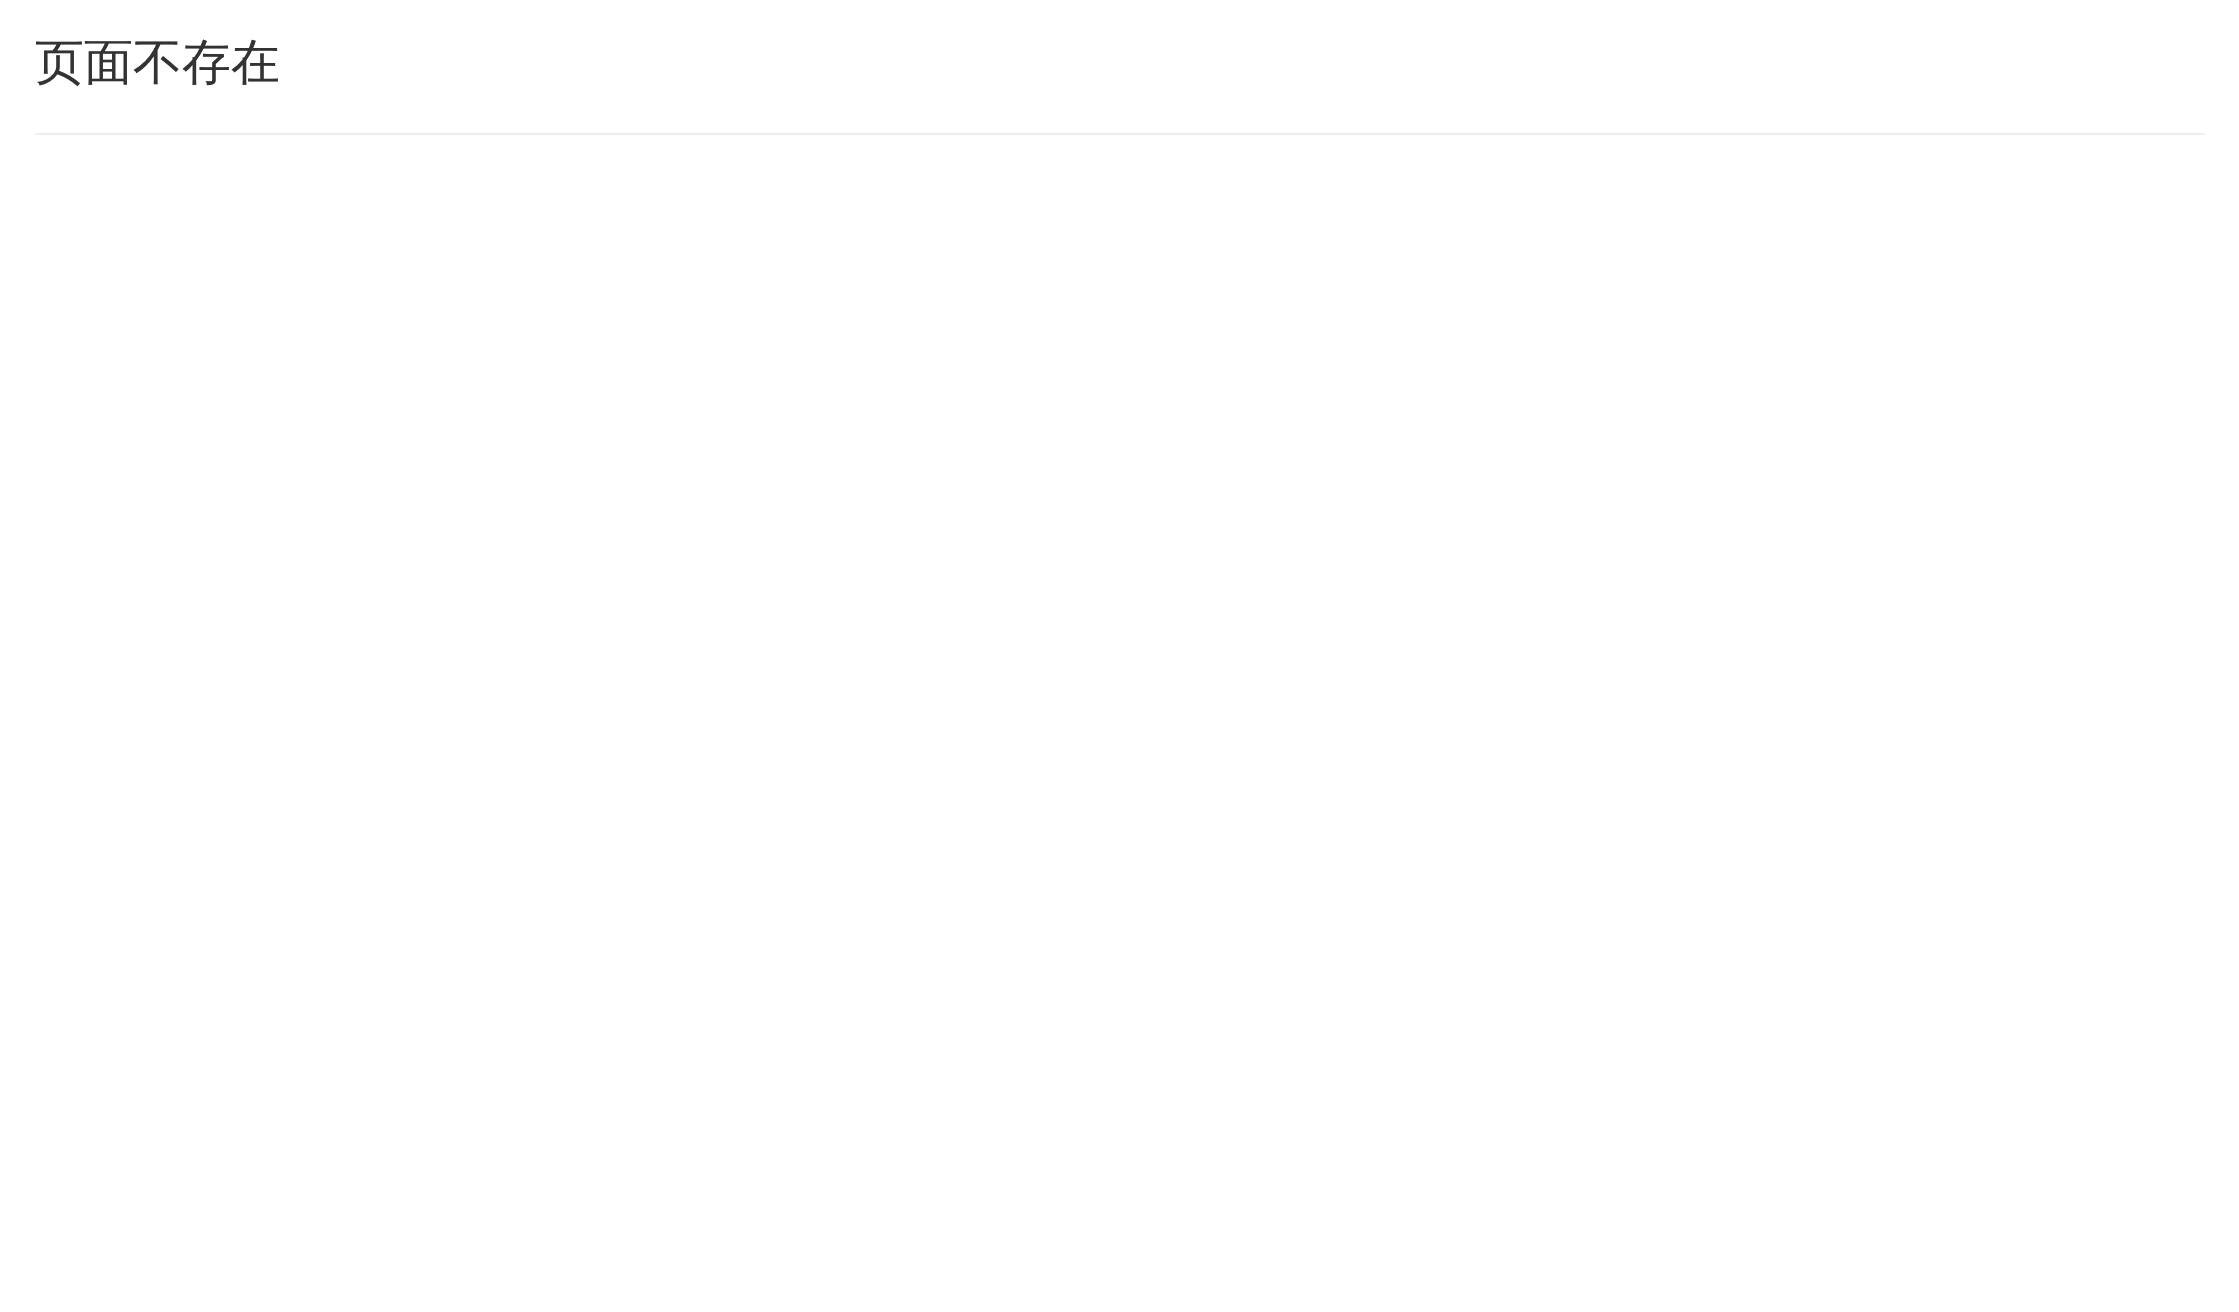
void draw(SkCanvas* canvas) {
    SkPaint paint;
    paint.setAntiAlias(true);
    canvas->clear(0xFFFFFFFF);
    SkFont font1(fontMgr->matchFamilyStyle("WenQuanYi Zen Hei", SkFontStyle(500, SkFontStyle::kNormal_Width, SkFontStyle::kUpright_Slant)), 49);
    font1.setSubpixel(true);
    paint.setColor(0xFF333333);
    canvas->drawString("页面不存在", 35, 79, font1, paint);
    paint.setColor(0xFFEEEEEE);
    canvas->drawRect(SkRect::MakeXYWH(35, 133, 2170, 2), paint);
}
